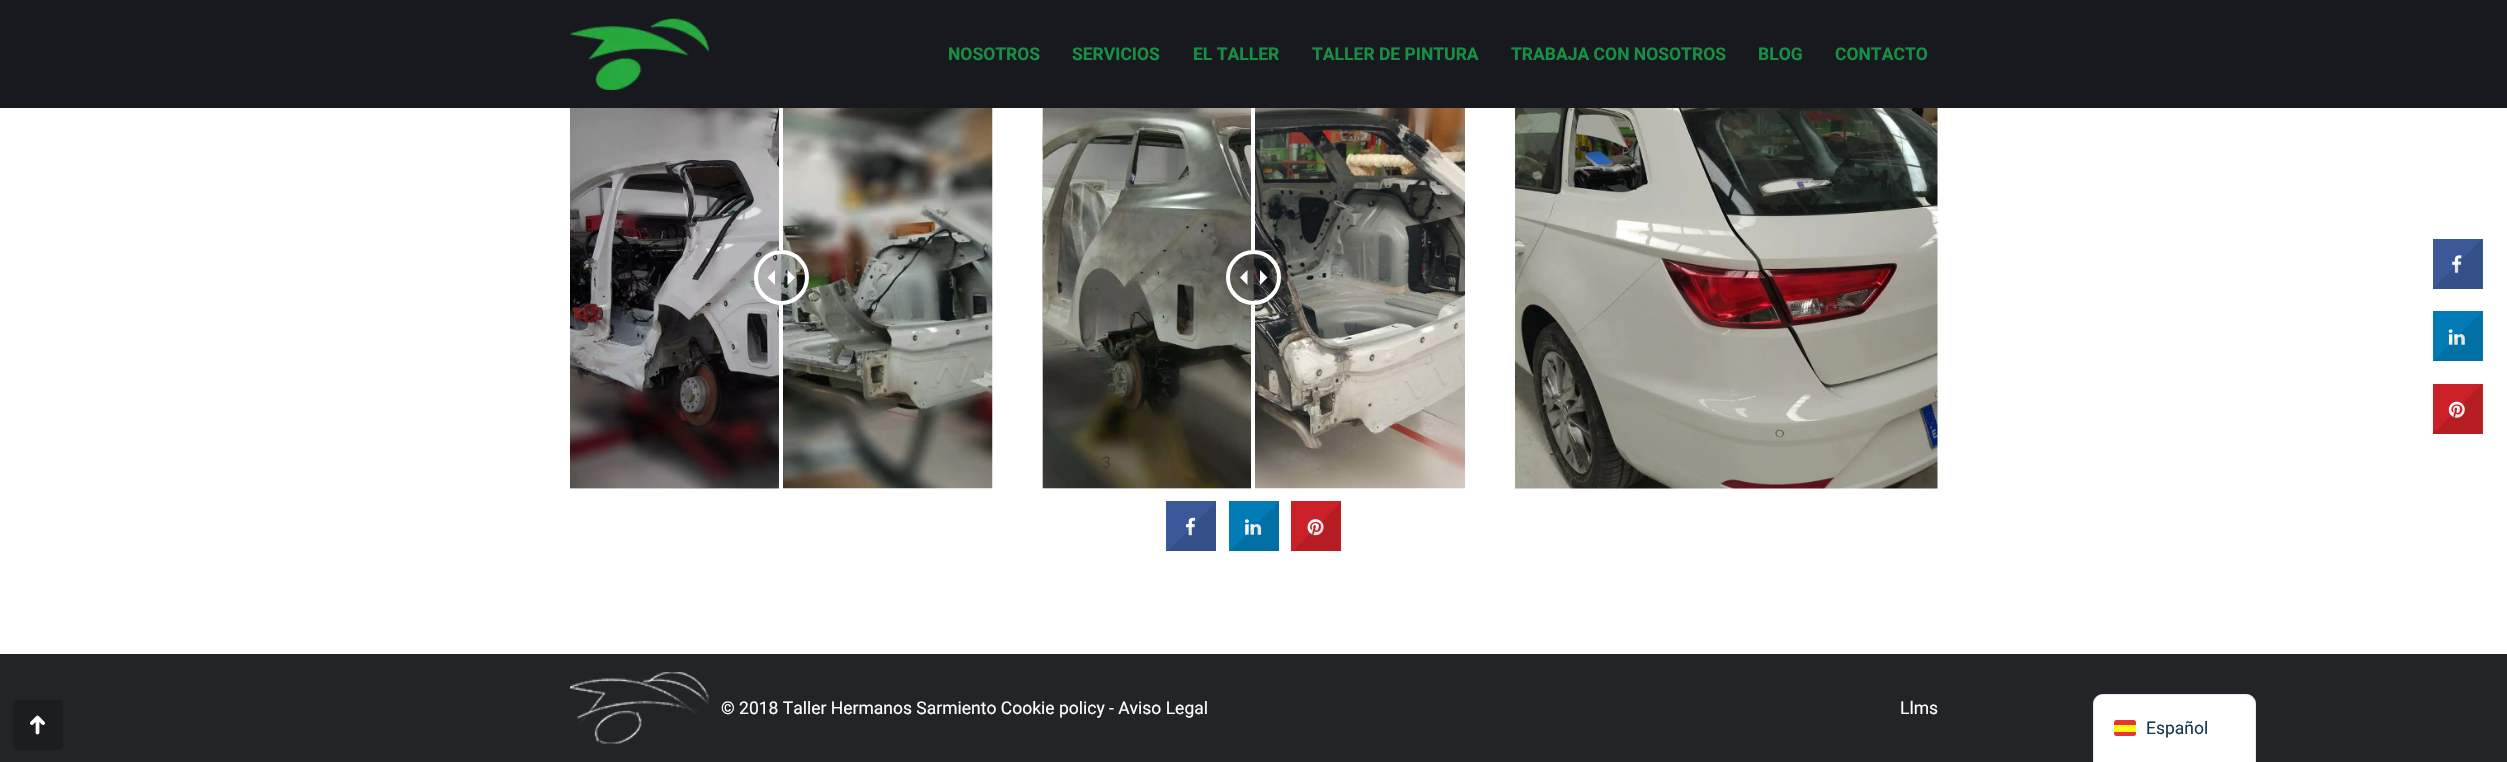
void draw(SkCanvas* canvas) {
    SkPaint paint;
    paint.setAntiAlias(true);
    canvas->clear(0xFFFFFFFF);
    paint.setColor(0xFF18191E);
    canvas->drawRect(SkRect::MakeXYWH(0, 0, 2507, 108), paint);
    canvas->drawImageRect(SkImages::DeferredFromEncodedData(SkData::MakeFromFileName("img1.png")), SkRect::MakeXYWH(570, 18, 139, 72), SkSamplingOptions());
    SkFont font1(fontMgr->matchFamilyStyle("Roboto", SkFontStyle::Bold()), 17.5f);
    font1.setSubpixel(true);
    paint.setColor(0xFF169144);
    canvas->drawString("NOSOTROS", 948, 60, font1, paint);
    canvas->drawString("SERVICIOS", 1072, 60, font1, paint);
    canvas->drawString("EL TALLER", 1193, 60, font1, paint);
    canvas->drawString("TALLER DE PINTURA", 1312, 60, font1, paint);
    canvas->drawString("TRABAJA CON NOSOTROS", 1511, 60, font1, paint);
    canvas->drawString("BLOG", 1758, 60, font1, paint);
    canvas->drawString("CONTACTO", 1835, 60, font1, paint);
    canvas->drawImageRect(SkImages::DeferredFromEncodedData(SkData::MakeFromFileName("img2.png")), SkRect::MakeXYWH(570, 108, 423, 381), SkSamplingOptions());
    canvas->drawImageRect(SkImages::DeferredFromEncodedData(SkData::MakeFromFileName("img3.png")), SkRect::MakeXYWH(570, 108, 212, 381), SkSamplingOptions());
    paint.setStyle(SkPaint::kStroke_Style);
    paint.setStrokeWidth(4);
    paint.setColor(0xFFFFFFFF);
    canvas->drawCircle(781.5f, 277.5f, 25.5f, paint);
    paint.setStyle(SkPaint::kFill_Style);
    canvas->drawRect(SkRect::MakeXYWH(779, 108, 4, 142), paint);
    canvas->drawPath(SkPathBuilder().moveTo(775, 270).lineTo(775, 285).lineTo(767.5f, 277.5f).close().moveTo(787.5f, 285).lineTo(787.5f, 270).lineTo(795, 277.5f).close().detach(), paint);
    canvas->drawRect(SkRect::MakeXYWH(779, 305, 4, 184), paint);
    canvas->drawImageRect(SkImages::DeferredFromEncodedData(SkData::MakeFromFileName("img4.png")), SkRect::MakeXYWH(1042, 108, 423, 381), SkSamplingOptions());
    canvas->drawImageRect(SkImages::DeferredFromEncodedData(SkData::MakeFromFileName("img5.png")), SkRect::MakeXYWH(1042, 108, 212, 381), SkSamplingOptions());
    SkFont font2(fontMgr->matchFamilyStyle("Roboto", SkFontStyle::Normal()), 16);
    font2.setSubpixel(true);
    paint.setColor(0xFF3C3C31);
    canvas->drawString("3", 1102, 468, font2, paint);
    paint.setStyle(SkPaint::kStroke_Style);
    paint.setColor(0xFFFFFFFF);
    canvas->drawCircle(1253.5f, 277.5f, 25.5f, paint);
    paint.setStyle(SkPaint::kFill_Style);
    canvas->drawRect(SkRect::MakeXYWH(1251, 108, 4, 142), paint);
    canvas->drawPath(SkPathBuilder().moveTo(1247.5f, 270).lineTo(1247.5f, 285).lineTo(1240, 277.5f).close().moveTo(1260, 285).lineTo(1260, 270).lineTo(1267.5f, 277.5f).close().detach(), paint);
    canvas->drawRect(SkRect::MakeXYWH(1251, 305, 4, 184), paint);
    canvas->drawImageRect(SkImages::DeferredFromEncodedData(SkData::MakeFromFileName("img6.png")), SkRect::MakeXYWH(1515, 108, 423, 381), SkSamplingOptions());
    paint.setColor(0xFF3B5998);
    canvas->drawRect(SkRect::MakeXYWH(1166, 501, 50, 50), paint);
    paint.setColor(0xFF355089);
    canvas->drawPath(SkPathBuilder().moveTo(1216, 501).lineTo(1216, 551).lineTo(1214, 549).lineTo(1214, 504).close().detach(), paint);
    paint.setColor(0x1A000000);
    canvas->drawPath(SkPathBuilder().moveTo(1216, 551).lineTo(1166, 551).lineTo(1169, 549).lineTo(1214, 549).close().detach(), paint);
    canvas->drawImageRect(SkImages::DeferredFromEncodedData(SkData::MakeFromFileName("img7.png")), SkRect::MakeXYWH(1186, 517, 10, 19), SkSamplingOptions());
    canvas->save();
    canvas->clipRect(SkRect::MakeXYWH(1169, 504, 45, 45));
    canvas->drawPath(SkPathBuilder().moveTo(1216, 502).lineTo(1241, 527).lineTo(1191, 576).lineTo(1167, 552).close().detach(), paint);
    canvas->restore();
    paint.setColor(0xFF007BB6);
    canvas->drawRect(SkRect::MakeXYWH(1229, 501, 50, 50), paint);
    paint.setColor(0xFF006FA4);
    canvas->drawPath(SkPathBuilder().moveTo(1279, 501).lineTo(1279, 551).lineTo(1276, 549).lineTo(1276, 504).close().detach(), paint);
    paint.setColor(0x1A000000);
    canvas->drawPath(SkPathBuilder().moveTo(1279, 551).lineTo(1229, 551).lineTo(1231, 549).lineTo(1276, 549).close().detach(), paint);
    canvas->drawImageRect(SkImages::DeferredFromEncodedData(SkData::MakeFromFileName("img8.png")), SkRect::MakeXYWH(1245, 519, 17, 16), SkSamplingOptions());
    canvas->save();
    canvas->clipRect(SkRect::MakeXYWH(1231, 504, 45, 45));
    canvas->drawPath(SkPathBuilder().moveTo(1279, 502).lineTo(1303, 527).lineTo(1254, 576).lineTo(1229, 552).close().detach(), paint);
    canvas->restore();
    paint.setColor(0xFFCB2027);
    canvas->drawRect(SkRect::MakeXYWH(1291, 501, 50, 50), paint);
    paint.setColor(0xFFB71D23);
    canvas->drawPath(SkPathBuilder().moveTo(1341, 501).lineTo(1341, 551).lineTo(1339, 549).lineTo(1339, 504).close().detach(), paint);
    paint.setColor(0x1A000000);
    canvas->drawPath(SkPathBuilder().moveTo(1341, 551).lineTo(1291, 551).lineTo(1294, 549).lineTo(1339, 549).close().detach(), paint);
    canvas->drawImageRect(SkImages::DeferredFromEncodedData(SkData::MakeFromFileName("img9.png")), SkRect::MakeXYWH(1307, 519, 17, 17), SkSamplingOptions());
    canvas->save();
    canvas->clipRect(SkRect::MakeXYWH(1294, 504, 45, 45));
    canvas->drawPath(SkPathBuilder().moveTo(1341, 502).lineTo(1366, 527).lineTo(1316, 576).lineTo(1292, 552).close().detach(), paint);
    canvas->restore();
    paint.setColor(0xFF232428);
    canvas->drawRect(SkRect::MakeXYWH(0, 654, 2507, 108), paint);
    paint.setColor(0xFF1C1D20);
    canvas->drawRoundRect(SkRect::MakeXYWH(13, 700, 50, 50), 4, 4, paint);
    canvas->drawImageRect(SkImages::DeferredFromEncodedData(SkData::MakeFromFileName("img10.png")), SkRect::MakeXYWH(30, 715, 15, 20), SkSamplingOptions());
    canvas->drawImageRect(SkImages::DeferredFromEncodedData(SkData::MakeFromFileName("img11.png")), SkRect::MakeXYWH(570, 672, 139, 72), SkSamplingOptions());
    SkFont font3(fontMgr->matchFamilyStyle("Roboto", SkFontStyle::Normal()), 17.5f);
    font3.setSubpixel(true);
    paint.setColor(0xFFFFFFFF);
    canvas->drawString("© 2018 Taller Hermanos Sarmiento Cookie policy - Aviso Legal", 721, 714, font3, paint);
    canvas->drawString("Llms", 1900, 714, font3, paint);
    paint.setColor(0xFF3B5998);
    canvas->drawRect(SkRect::MakeXYWH(2433, 239, 50, 50), paint);
    paint.setColor(0xFF355089);
    canvas->drawPath(SkPathBuilder().moveTo(2482, 239).lineTo(2482, 289).lineTo(2480, 286).lineTo(2480, 241).close().detach(), paint);
    paint.setColor(0x1A000000);
    canvas->drawPath(SkPathBuilder().moveTo(2482, 289).lineTo(2432, 289).lineTo(2435, 286).lineTo(2480, 286).close().detach(), paint);
    canvas->drawImageRect(SkImages::DeferredFromEncodedData(SkData::MakeFromFileName("img12.png")), SkRect::MakeXYWH(2452, 255, 10, 18), SkSamplingOptions());
    canvas->save();
    canvas->clipRect(SkRect::MakeXYWH(2435, 241, 45, 45));
    canvas->drawPath(SkPathBuilder().moveTo(2482, 239).lineTo(2507, 264).lineTo(2458, 313).lineTo(2433, 289).close().detach(), paint);
    canvas->restore();
    paint.setColor(0xFF007BB6);
    canvas->drawRect(SkRect::MakeXYWH(2433, 311, 50, 50), paint);
    paint.setColor(0xFF006FA4);
    canvas->drawPath(SkPathBuilder().moveTo(2482, 311).lineTo(2482, 361).lineTo(2480, 359).lineTo(2480, 314).close().detach(), paint);
    paint.setColor(0x1A000000);
    canvas->drawPath(SkPathBuilder().moveTo(2482, 361).lineTo(2432, 361).lineTo(2435, 359).lineTo(2480, 359).close().detach(), paint);
    canvas->drawImageRect(SkImages::DeferredFromEncodedData(SkData::MakeFromFileName("img13.png")), SkRect::MakeXYWH(2448, 329, 17, 16), SkSamplingOptions());
    canvas->save();
    canvas->clipRect(SkRect::MakeXYWH(2435, 314, 45, 45));
    canvas->drawPath(SkPathBuilder().moveTo(2482, 312).lineTo(2507, 336).lineTo(2458, 386).lineTo(2433, 361).close().detach(), paint);
    canvas->restore();
    paint.setColor(0xFFCB2027);
    canvas->drawRect(SkRect::MakeXYWH(2433, 384, 50, 50), paint);
    paint.setColor(0xFFB71D23);
    canvas->drawPath(SkPathBuilder().moveTo(2482, 384).lineTo(2482, 434).lineTo(2480, 431).lineTo(2480, 386).close().detach(), paint);
    paint.setColor(0x1A000000);
    canvas->drawPath(SkPathBuilder().moveTo(2482, 434).lineTo(2432, 434).lineTo(2435, 431).lineTo(2480, 431).close().detach(), paint);
    canvas->drawImageRect(SkImages::DeferredFromEncodedData(SkData::MakeFromFileName("img14.png")), SkRect::MakeXYWH(2448, 401, 17, 17), SkSamplingOptions());
    canvas->save();
    canvas->clipRect(SkRect::MakeXYWH(2435, 386, 45, 45));
    canvas->drawPath(SkPathBuilder().moveTo(2482, 384).lineTo(2507, 409).lineTo(2458, 458).lineTo(2433, 434).close().detach(), paint);
    canvas->restore();
    paint.setColor(0xFFFFFFFF);
    canvas->drawPath(SkPathBuilder().moveTo(2103, 694).lineTo(2246, 694).cubicTo(2251.5f, 694, 2256, 698.5f, 2256, 704).lineTo(2256, 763).lineTo(2093, 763).lineTo(2093, 704).cubicTo(2093, 698.5f, 2097.5f, 694, 2103, 694).close().detach(), paint);
    paint.setStyle(SkPaint::kStroke_Style);
    paint.setStrokeWidth(1);
    paint.setColor(0x1A143852);
    canvas->drawPath(SkPathBuilder().moveTo(2103, 694.5f).lineTo(2246, 694.5f).cubicTo(2251, 694.5f, 2255.5f, 699, 2255.5f, 704).lineTo(2255.5f, 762.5f).lineTo(2093.5f, 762.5f).lineTo(2093.5f, 704).cubicTo(2093.5f, 699, 2098, 694.5f, 2103, 694.5f).close().detach(), paint);
    paint.setStyle(SkPaint::kFill_Style);
    paint.setColor(0xFFE83434);
    canvas->drawRoundRect(SkRect::MakeXYWH(2114, 720, 22, 16), 2.5f, 2.5f, paint);
    paint.setColor(0xFFFFF915);
    canvas->drawRect(SkRect::MakeXYWH(2114, 725, 22, 7), paint);
    paint.setColor(0xFF143852);
    canvas->drawString("Español", 2146, 734, font3, paint);
}
